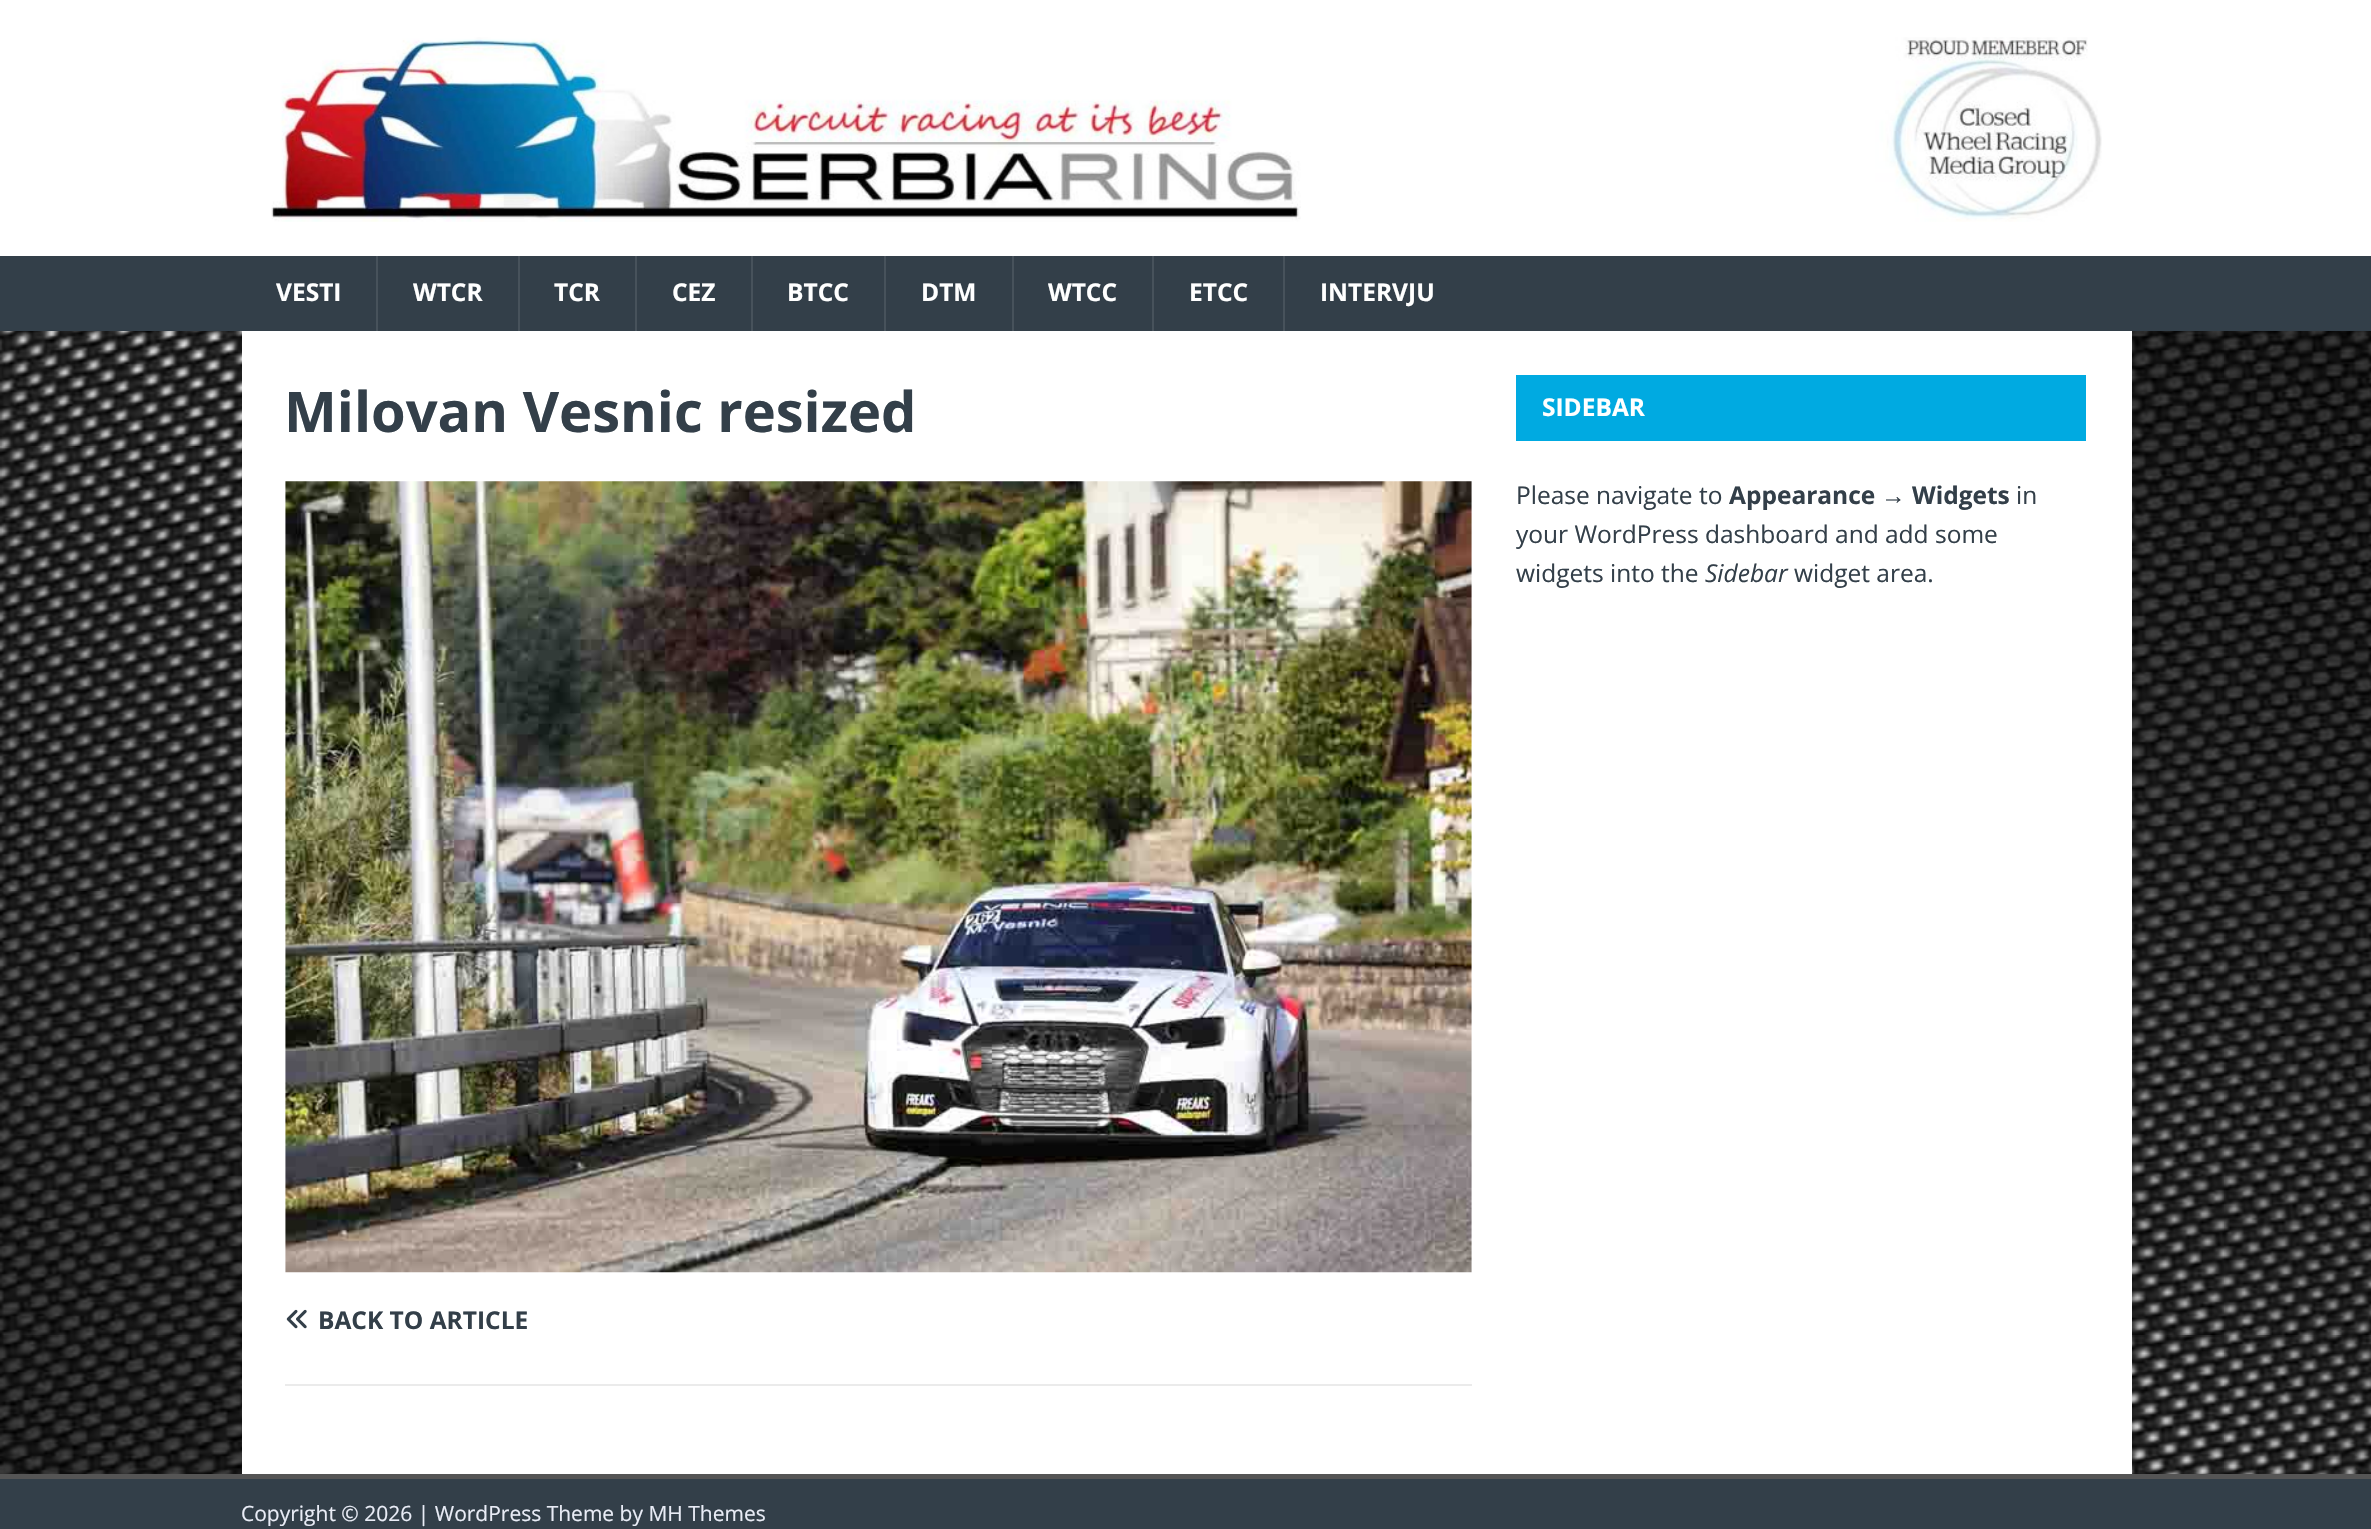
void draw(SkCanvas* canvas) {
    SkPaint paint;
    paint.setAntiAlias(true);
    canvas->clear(0xFFFFFFFF);
    canvas->drawImageRect(SkImages::DeferredFromEncodedData(SkData::MakeFromFileName("img1.png")), SkRect::MakeXYWH(0, 331, 2371, 1143), SkSamplingOptions());
    canvas->drawImageRect(SkImages::DeferredFromEncodedData(SkData::MakeFromFileName("img2.png")), SkRect::MakeXYWH(271, 37, 1831, 185), SkSamplingOptions());
    paint.setColor(0xFF333F49);
    canvas->drawRect(SkRect::MakeXYWH(0, 256, 2371, 75), paint);
    SkFont font1(fontMgr->matchFamilyStyle("Open Sans", SkFontStyle::Bold()), 24.5f);
    font1.setSubpixel(true);
    paint.setColor(0xFFFFFFFF);
    canvas->drawString("VESTI", 276, 301, font1, paint);
    paint.setColor(0xFF47525B);
    canvas->drawRect(SkRect::MakeXYWH(376, 256, 2, 75), paint);
    paint.setColor(0xFFFFFFFF);
    canvas->drawString("WTCR", 413, 301, font1, paint);
    paint.setColor(0xFF47525B);
    canvas->drawRect(SkRect::MakeXYWH(518, 256, 2, 75), paint);
    paint.setColor(0xFFFFFFFF);
    canvas->drawString("TCR", 554, 301, font1, paint);
    paint.setColor(0xFF47525B);
    canvas->drawRect(SkRect::MakeXYWH(635, 256, 2, 75), paint);
    paint.setColor(0xFFFFFFFF);
    canvas->drawString("CEZ", 672, 301, font1, paint);
    paint.setColor(0xFF47525B);
    canvas->drawRect(SkRect::MakeXYWH(751, 256, 2, 75), paint);
    paint.setColor(0xFFFFFFFF);
    canvas->drawString("BTCC", 787, 301, font1, paint);
    paint.setColor(0xFF47525B);
    canvas->drawRect(SkRect::MakeXYWH(884, 256, 2, 75), paint);
    paint.setColor(0xFFFFFFFF);
    canvas->drawString("DTM", 921, 301, font1, paint);
    paint.setColor(0xFF47525B);
    canvas->drawRect(SkRect::MakeXYWH(1012, 256, 2, 75), paint);
    paint.setColor(0xFFFFFFFF);
    canvas->drawString("WTCC", 1048, 301, font1, paint);
    paint.setColor(0xFF47525B);
    canvas->drawRect(SkRect::MakeXYWH(1152, 256, 2, 75), paint);
    paint.setColor(0xFFFFFFFF);
    canvas->drawString("ETCC", 1189, 301, font1, paint);
    paint.setColor(0xFF47525B);
    canvas->drawRect(SkRect::MakeXYWH(1283, 256, 2, 75), paint);
    paint.setColor(0xFFFFFFFF);
    canvas->drawString("INTERVJU", 1320, 301, font1, paint);
    canvas->drawRect(SkRect::MakeXYWH(242, 331, 1890, 1143), paint);
    SkFont font2(fontMgr->matchFamilyStyle("Open Sans", SkFontStyle::Bold()), 56);
    font2.setSubpixel(true);
    paint.setColor(0xFF333F49);
    canvas->drawString("Milovan Vesnic resized", 284, 432, font2, paint);
    canvas->drawImageRect(SkImages::DeferredFromEncodedData(SkData::MakeFromFileName("img3.png")), SkRect::MakeXYWH(285, 481, 1187, 792), SkSamplingOptions());
    paint.setColor(0xFFEBEBEB);
    canvas->drawRect(SkRect::MakeXYWH(285, 1384, 1187, 2), paint);
    canvas->drawImageRect(SkImages::DeferredFromEncodedData(SkData::MakeFromFileName("img4.png")), SkRect::MakeXYWH(286, 1309, 21, 20), SkSamplingOptions());
    paint.setColor(0xFF333F49);
    canvas->drawString("BACK TO ARTICLE", 318, 1329, font1, paint);
    paint.setColor(0xFF00AAE1);
    canvas->drawRect(SkRect::MakeXYWH(1516, 375, 570, 66), paint);
    paint.setColor(0xFFFFFFFF);
    canvas->drawString("SIDEBAR", 1542, 416, font1, paint);
    SkFont font3(fontMgr->matchFamilyStyle("Open Sans", SkFontStyle::Normal()), 24.5f);
    font3.setSubpixel(true);
    paint.setColor(0xFF333F49);
    canvas->drawString("Please navigate to", 1516, 504, font3, paint);
    canvas->drawString("Appearance", 1729, 504, font1, paint);
    SkFont font4(fontMgr->matchFamilyStyle("Liberation Sans", SkFontStyle::Bold()), 24.5f);
    font4.setSubpixel(true);
    canvas->drawString("→", 1881, 504, font4, paint);
    canvas->drawString("Widgets", 1912, 504, font1, paint);
    canvas->drawString("in", 2016, 504, font3, paint);
    canvas->drawString("your WordPress dashboard and add some", 1516, 543, font3, paint);
    canvas->drawString("widgets into the", 1516, 582, font3, paint);
    SkFont font5(fontMgr->matchFamilyStyle("Open Sans", SkFontStyle::Italic()), 24.5f);
    font5.setSubpixel(true);
    canvas->drawString("Sidebar", 1705, 582, font5, paint);
    canvas->drawString("widget area.", 1794, 582, font3, paint);
    canvas->drawRect(SkRect::MakeXYWH(0, 1479, 2371, 50), paint);
    paint.setColor(0xFF555555);
    canvas->drawRect(SkRect::MakeXYWH(0, 1474, 2371, 5), paint);
    SkFont font6(fontMgr->matchFamilyStyle("Open Sans", SkFontStyle::Normal()), 21);
    font6.setSubpixel(true);
    paint.setColor(0xFFE9ECF6);
    canvas->drawString("Copyright © 2026 | WordPress Theme by MH Themes", 241, 1521, font6, paint);
}
